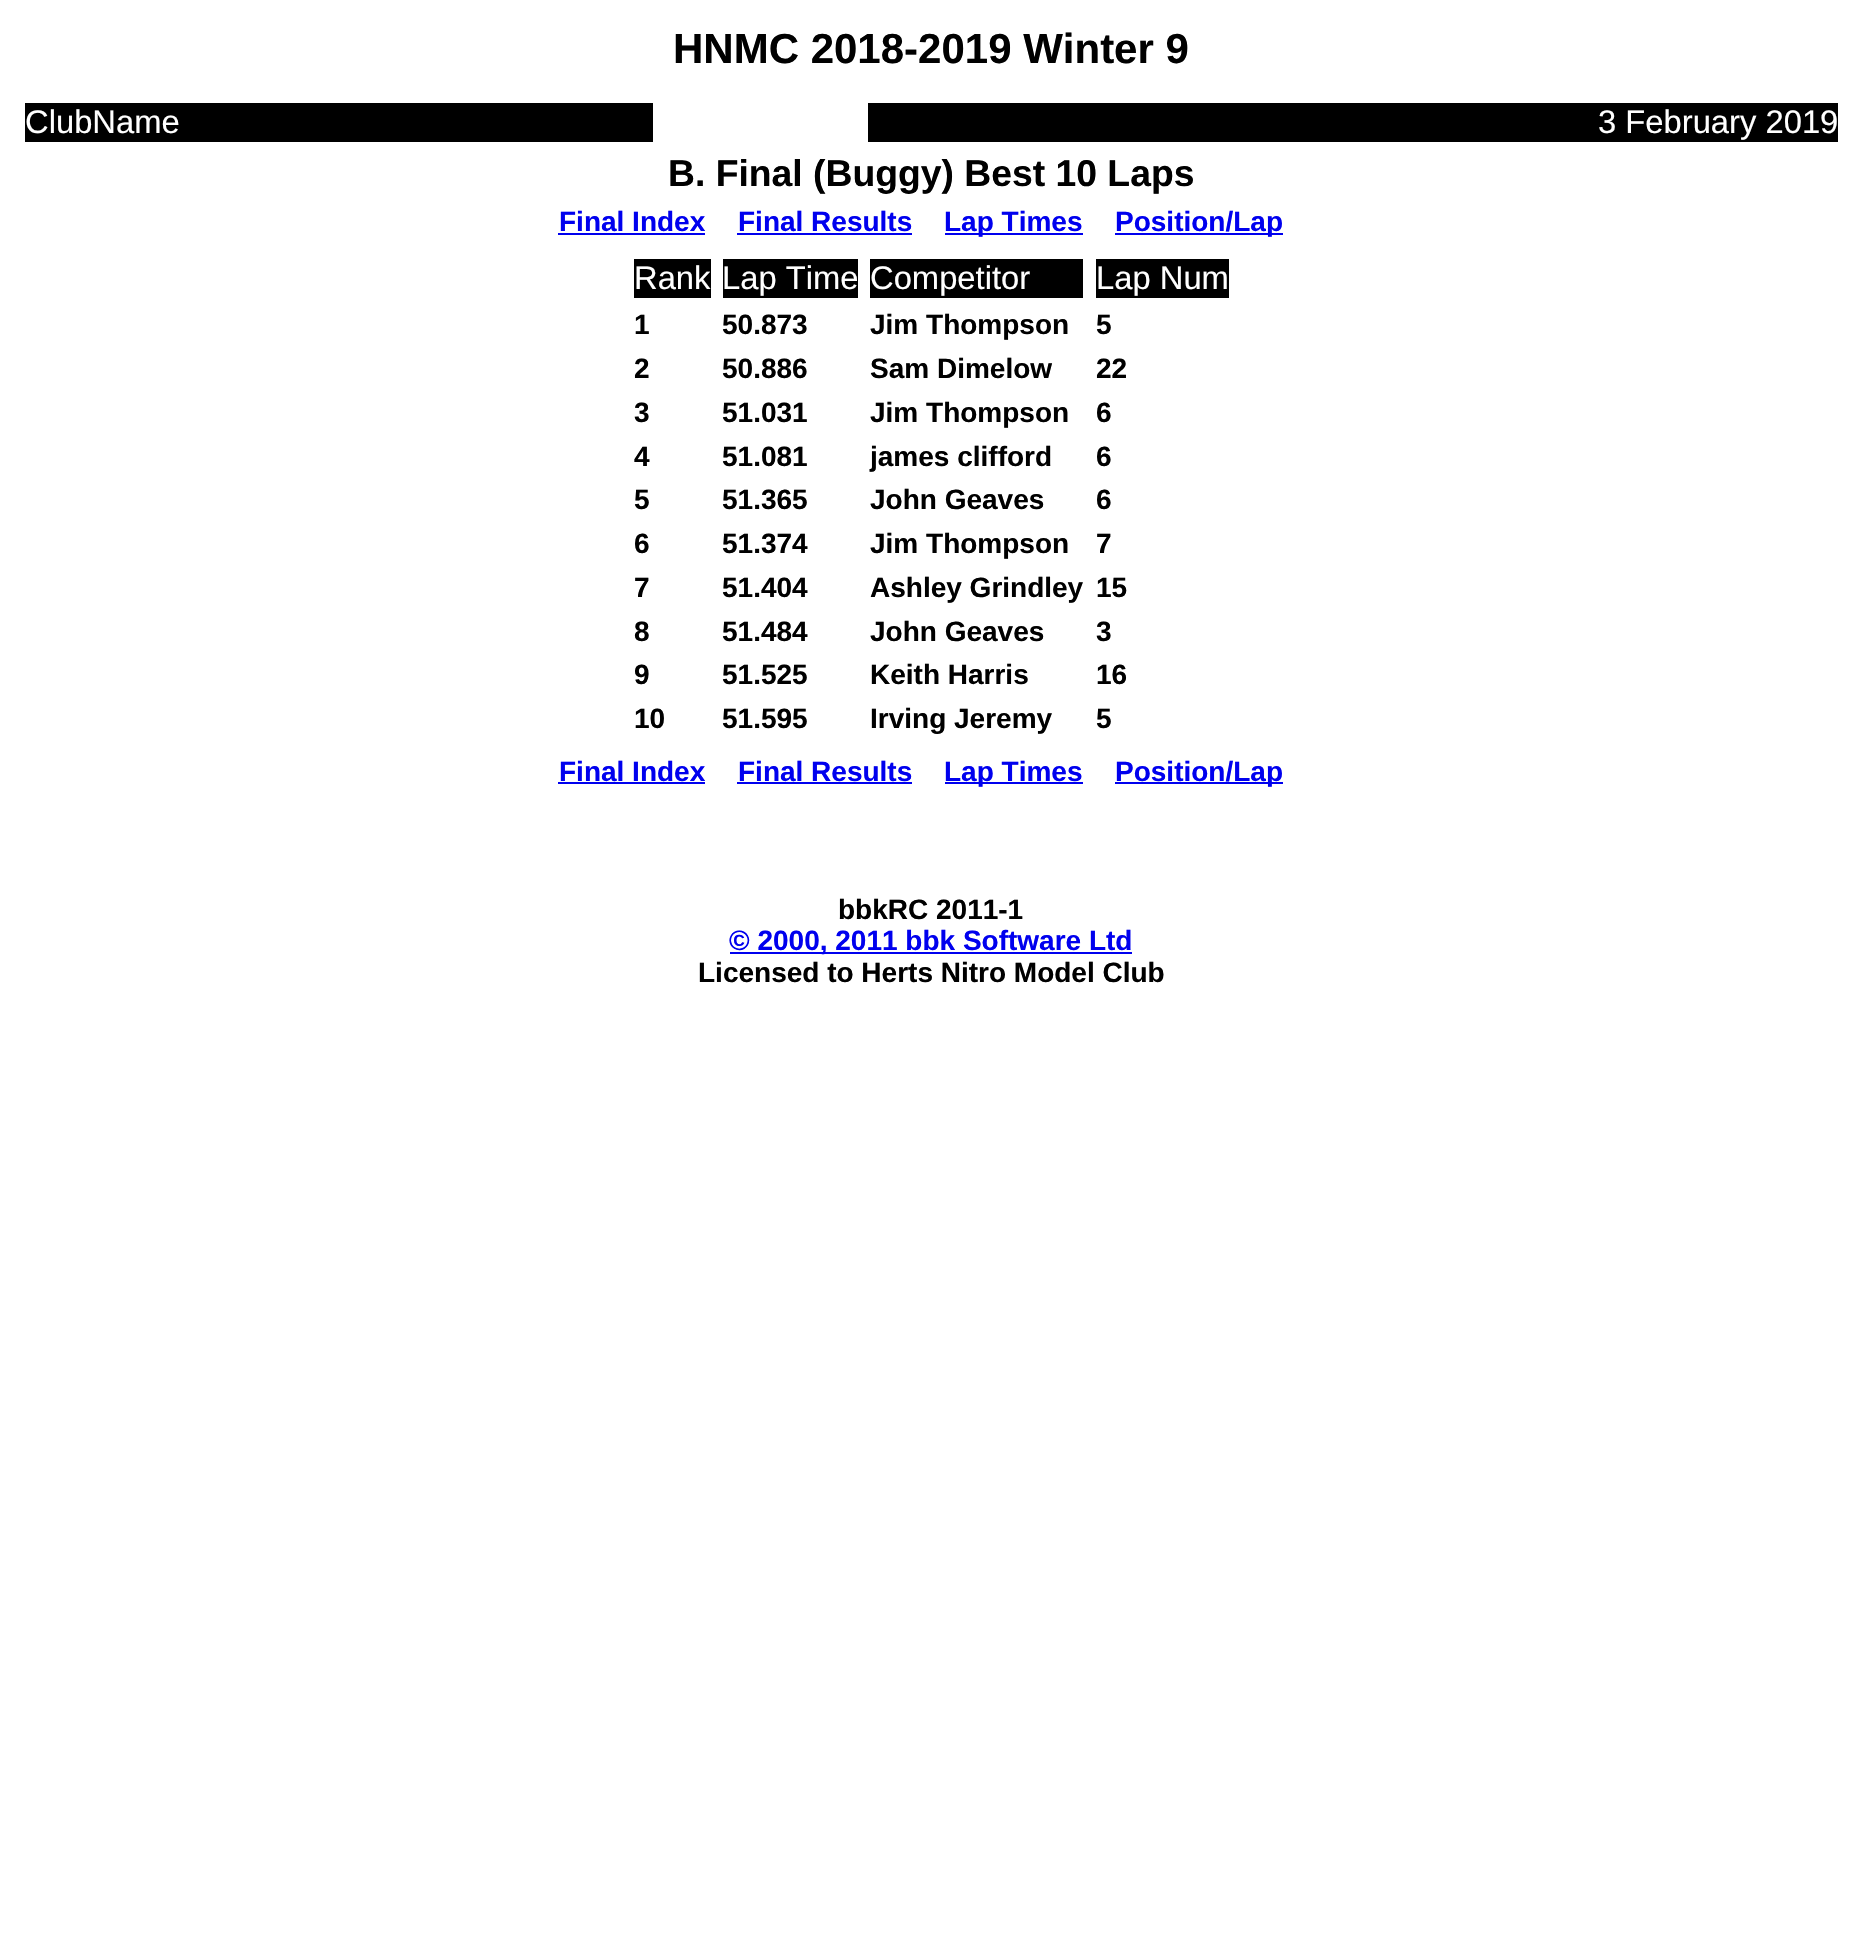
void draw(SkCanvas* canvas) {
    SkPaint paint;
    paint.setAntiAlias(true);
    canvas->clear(0xFFFFFFFF);
    SkFont font1(fontMgr->matchFamilyStyle("Liberation Sans", SkFontStyle::Bold()), 42);
    font1.setSubpixel(true);
    paint.setColor(0xFF000000);
    canvas->drawString("HNMC 2018-2019 Winter 9", 673, 63, font1, paint);
    canvas->drawRect(SkRect::MakeXYWH(25, 103, 628, 39), paint);
    SkFont font2(fontMgr->matchFamilyStyle("Liberation Sans", SkFontStyle::Normal()), 32.75f);
    font2.setSubpixel(true);
    paint.setColor(0xFFFFFFFF);
    canvas->drawString("ClubName", 25, 133, font2, paint);
    paint.setColor(0xFF000000);
    canvas->drawRect(SkRect::MakeXYWH(868, 103, 970, 39), paint);
    paint.setColor(0xFFFFFFFF);
    canvas->drawString("3 February 2019", 1598, 133, font2, paint);
    SkFont font3(fontMgr->matchFamilyStyle("Liberation Sans", SkFontStyle::Bold()), 37.3f);
    font3.setSubpixel(true);
    paint.setColor(0xFF000000);
    canvas->drawString("B. Final (Buggy) Best 10 Laps", 668, 186, font3, paint);
    SkFont font4(fontMgr->matchFamilyStyle("Liberation Sans", SkFontStyle::Bold()), 28);
    font4.setSubpixel(true);
    paint.setColor(0xFF0000EE);
    canvas->drawString("Final Index", 559, 231, font4, paint);
    canvas->drawRect(SkRect::MakeXYWH(558, 233, 147, 2), paint);
    canvas->drawString("Final Results", 738, 231, font4, paint);
    canvas->drawRect(SkRect::MakeXYWH(737, 233, 175, 2), paint);
    canvas->drawRect(SkRect::MakeXYWH(945, 233, 138, 2), paint);
    canvas->drawString("Lap Times", 944, 231, font4, paint);
    canvas->drawRect(SkRect::MakeXYWH(1115, 233, 168, 2), paint);
    canvas->drawString("Position/Lap", 1115, 231, font4, paint);
    paint.setColor(0xFF000000);
    canvas->drawRect(SkRect::MakeXYWH(634, 259, 77, 39), paint);
    paint.setColor(0xFFFFFFFF);
    canvas->drawString("Rank", 634, 289, font2, paint);
    paint.setColor(0xFF000000);
    canvas->drawRect(SkRect::MakeXYWH(723, 259, 135, 39), paint);
    paint.setColor(0xFFFFFFFF);
    canvas->drawString("Lap Time", 722, 289, font2, paint);
    paint.setColor(0xFF000000);
    canvas->drawRect(SkRect::MakeXYWH(870, 259, 213, 39), paint);
    paint.setColor(0xFFFFFFFF);
    canvas->drawString("Competitor", 870, 289, font2, paint);
    paint.setColor(0xFF000000);
    canvas->drawRect(SkRect::MakeXYWH(1096, 259, 133, 39), paint);
    paint.setColor(0xFFFFFFFF);
    canvas->drawString("Lap Num", 1096, 289, font2, paint);
    paint.setColor(0xFF000000);
    canvas->drawString("1", 634, 334, font4, paint);
    canvas->drawString("50.873", 722, 334, font4, paint);
    canvas->drawString("Jim Thompson", 870, 334, font4, paint);
    canvas->drawString("5", 1096, 334, font4, paint);
    canvas->drawString("2", 634, 378, font4, paint);
    canvas->drawString("50.886", 722, 378, font4, paint);
    canvas->drawString("Sam Dimelow", 870, 378, font4, paint);
    canvas->drawString("22", 1096, 378, font4, paint);
    canvas->drawString("3", 634, 422, font4, paint);
    canvas->drawString("51.031", 722, 422, font4, paint);
    canvas->drawString("Jim Thompson", 870, 422, font4, paint);
    canvas->drawString("6", 1096, 422, font4, paint);
    canvas->drawString("4", 634, 466, font4, paint);
    canvas->drawString("51.081", 722, 466, font4, paint);
    canvas->drawString("james clifford", 870, 466, font4, paint);
    canvas->drawString("6", 1096, 466, font4, paint);
    canvas->drawString("5", 634, 509, font4, paint);
    canvas->drawString("51.365", 722, 509, font4, paint);
    canvas->drawString("John Geaves", 870, 509, font4, paint);
    canvas->drawString("6", 1096, 509, font4, paint);
    canvas->drawString("6", 634, 553, font4, paint);
    canvas->drawString("51.374", 722, 553, font4, paint);
    canvas->drawString("Jim Thompson", 870, 553, font4, paint);
    canvas->drawString("7", 1096, 553, font4, paint);
    canvas->drawString("7", 634, 597, font4, paint);
    canvas->drawString("51.404", 722, 597, font4, paint);
    canvas->drawString("Ashley Grindley", 870, 597, font4, paint);
    canvas->drawString("15", 1096, 597, font4, paint);
    canvas->drawString("8", 634, 641, font4, paint);
    canvas->drawString("51.484", 722, 641, font4, paint);
    canvas->drawString("John Geaves", 870, 641, font4, paint);
    canvas->drawString("3", 1096, 641, font4, paint);
    canvas->drawString("9", 634, 684, font4, paint);
    canvas->drawString("51.525", 722, 684, font4, paint);
    canvas->drawString("Keith Harris", 870, 684, font4, paint);
    canvas->drawString("16", 1096, 684, font4, paint);
    canvas->drawString("10", 634, 728, font4, paint);
    canvas->drawString("51.595", 722, 728, font4, paint);
    canvas->drawString("Irving Jeremy", 870, 728, font4, paint);
    canvas->drawString("5", 1096, 728, font4, paint);
    paint.setColor(0xFF0000EE);
    canvas->drawString("Final Index", 559, 781, font4, paint);
    canvas->drawRect(SkRect::MakeXYWH(558, 782, 147, 2), paint);
    canvas->drawString("Final Results", 738, 781, font4, paint);
    canvas->drawRect(SkRect::MakeXYWH(737, 782, 175, 2), paint);
    canvas->drawRect(SkRect::MakeXYWH(945, 782, 138, 2), paint);
    canvas->drawString("Lap Times", 944, 781, font4, paint);
    canvas->drawRect(SkRect::MakeXYWH(1115, 782, 168, 2), paint);
    canvas->drawString("Position/Lap", 1115, 781, font4, paint);
    paint.setColor(0xFF000000);
    canvas->drawString("bbkRC 2011-1", 838, 919, font4, paint);
    paint.setColor(0xFF0000EE);
    canvas->drawRect(SkRect::MakeXYWH(730, 952, 402, 2), paint);
    canvas->drawString("© 2000, 2011 bbk Software Ltd", 729, 950, font4, paint);
    paint.setColor(0xFF000000);
    canvas->drawString("Licensed to Herts Nitro Model Club", 698, 982, font4, paint);
}
